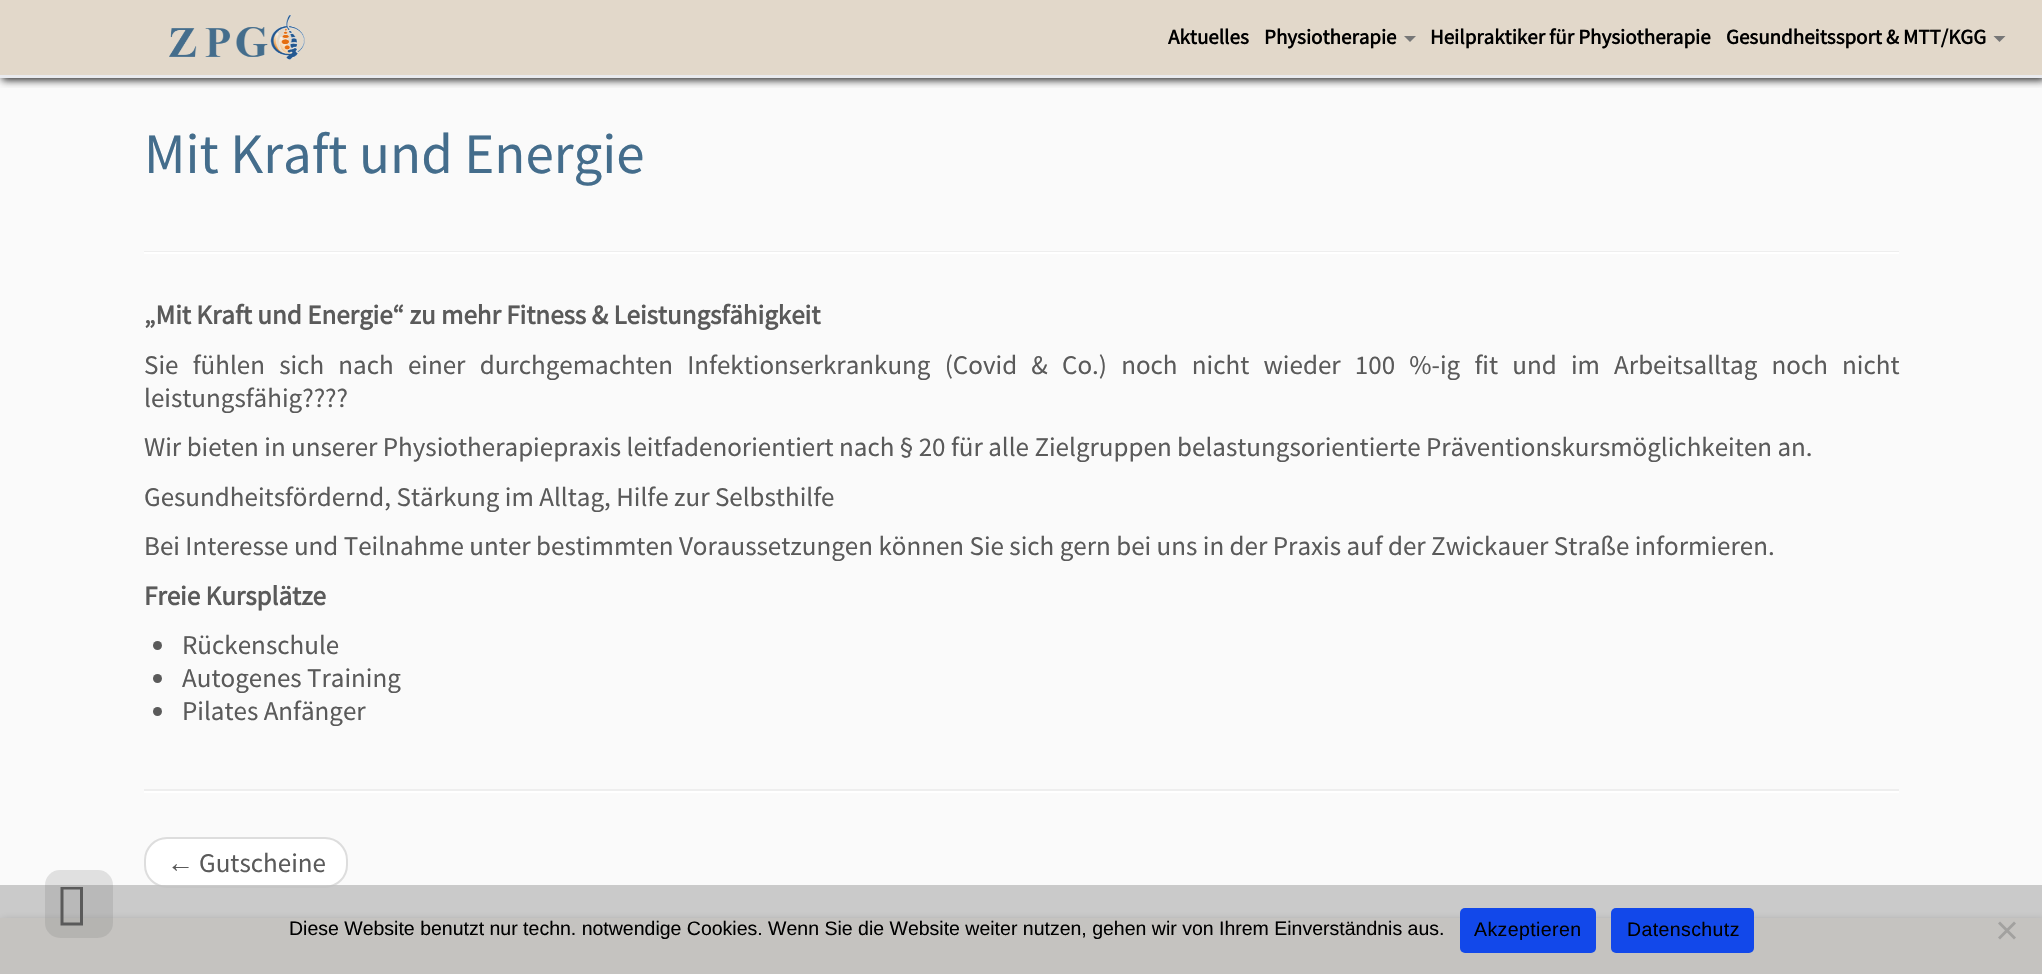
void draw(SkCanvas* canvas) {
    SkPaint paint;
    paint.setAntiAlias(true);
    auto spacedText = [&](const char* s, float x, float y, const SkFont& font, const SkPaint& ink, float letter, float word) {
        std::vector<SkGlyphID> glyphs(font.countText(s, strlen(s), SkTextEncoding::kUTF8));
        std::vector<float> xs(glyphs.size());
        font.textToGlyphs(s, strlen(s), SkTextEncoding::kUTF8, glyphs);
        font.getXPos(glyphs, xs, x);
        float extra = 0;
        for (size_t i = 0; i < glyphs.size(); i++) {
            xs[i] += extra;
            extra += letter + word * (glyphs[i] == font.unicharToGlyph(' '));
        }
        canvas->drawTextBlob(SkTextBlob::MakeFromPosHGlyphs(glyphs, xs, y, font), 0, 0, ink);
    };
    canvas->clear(0xFFFAFAFA);
    canvas->save();
    canvas->clipRect(SkRect::MakeXYWH(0, 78, 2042, 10));
    paint.setColor(0xFF202020);
    paint.setMaskFilter(SkMaskFilter::MakeBlur(kNormal_SkBlurStyle, 4));
    canvas->drawRect(SkRect::MakeXYWH(2, 2, 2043, 78), paint);
    paint.setMaskFilter(nullptr);
    canvas->restore();
    paint.setColor(0xCCDCCFBE);
    canvas->drawRect(SkRect::MakeXYWH(0, 0, 2042, 75), paint);
    paint.setColor(0xFFE9EAEE);
    canvas->drawRect(SkRect::MakeXYWH(0, 75, 2042, 3), paint);
    canvas->drawImageRect(SkImages::DeferredFromEncodedData(SkData::MakeFromFileName("img1.png")), SkRect::MakeXYWH(169, 15, 136, 45), SkSamplingOptions());
    SkFont font1(fontMgr->matchFamilyStyle("Source Sans Pro", SkFontStyle::Bold()), 21);
    font1.setSubpixel(true);
    paint.setColor(0xFF000000);
    canvas->drawString("Aktuelles", 1168, 44, font1, paint);
    canvas->drawString("Physiotherapie", 1264, 44, font1, paint);
    paint.setColor(0xFF777777);
    canvas->drawPath(SkPathBuilder().moveTo(1404, 36).lineTo(1416, 36).lineTo(1410, 42).close().detach(), paint);
    paint.setColor(0xFF000000);
    canvas->drawString("Heilpraktiker für Physiotherapie", 1430, 44, font1, paint);
    canvas->drawString("Gesundheitssport & MTT/KGG", 1726, 44, font1, paint);
    paint.setColor(0xFF777777);
    canvas->drawPath(SkPathBuilder().moveTo(1993.5f, 36).lineTo(2005.5f, 36).lineTo(1999.5f, 42).close().detach(), paint);
    SkFont font2(fontMgr->matchFamilyStyle("Source Sans Pro", SkFontStyle::Normal()), 57);
    font2.setSubpixel(true);
    paint.setColor(0xFF446D8C);
    canvas->drawString("Mit Kraft und Energie", 144, 173, font2, paint);
    paint.setColor(0xFFEEEEEE);
    canvas->drawRect(SkRect::MakeXYWH(144, 251, 1755, 1), paint);
    paint.setColor(0xFFFFFFFF);
    canvas->drawRect(SkRect::MakeXYWH(144, 252, 1755, 2), paint);
    SkFont font3(fontMgr->matchFamilyStyle("Source Sans Pro", SkFontStyle::Bold()), 27);
    font3.setSubpixel(true);
    paint.setColor(0xFF5A5A5A);
    canvas->drawString("„Mit Kraft und Energie“ zu mehr Fitness & Leistungsfähigkeit", 144, 324, font3, paint);
    SkFont font4(fontMgr->matchFamilyStyle("Source Sans Pro", SkFontStyle::Normal()), 27);
    font4.setSubpixel(true);
    spacedText("Sie fühlen sich nach einer durchgemachten Infektionserkrankung (Covid & Co.) noch nicht wieder 100 %-ig fit und im Arbeitsalltag noch nicht", 144, 374, font4, paint, 0, 8.8f);
    canvas->drawString("leistungsfähig?\077?\077", 144, 407, font4, paint);
    canvas->drawString("Wir bieten in unserer Physiotherapiepraxis leitfadenorientiert nach § 20 für alle Zielgruppen belastungsorientierte Präventionskursmöglichkeiten an.", 144, 456, font4, paint);
    canvas->drawString("Gesundheitsfördernd, Stärkung im Alltag, Hilfe zur Selbsthilfe", 144, 506, font4, paint);
    canvas->drawString("Bei Interesse und Teilnahme unter bestimmten Voraussetzungen können Sie sich gern bei uns in der Praxis auf der Zwickauer Straße informieren.", 144, 555, font4, paint);
    canvas->drawString("Freie Kursplätze", 144, 605, font3, paint);
    canvas->drawCircle(157.5f, 645.5f, 4.5f, paint);
    canvas->drawString("Rückenschule", 182, 654, font4, paint);
    canvas->drawCircle(157.5f, 678.5f, 4.5f, paint);
    canvas->drawString("Autogenes Training", 182, 687, font4, paint);
    canvas->drawCircle(157.5f, 711.5f, 4.5f, paint);
    canvas->drawString("Pilates Anfänger", 182, 720, font4, paint);
    paint.setColor(0xFFEEEEEE);
    canvas->drawRect(SkRect::MakeXYWH(144, 789, 1755, 2), paint);
    paint.setColor(0xFFFFFFFF);
    canvas->drawRect(SkRect::MakeXYWH(144, 791, 1755, 2), paint);
    canvas->drawRoundRect(SkRect::MakeXYWH(145, 838, 202, 49), 22, 22, paint);
    paint.setStyle(SkPaint::kStroke_Style);
    paint.setStrokeWidth(2);
    paint.setColor(0xFFDDDDDD);
    canvas->drawRoundRect(SkRect::MakeXYWH(145, 838, 202, 49), 22, 22, paint);
    SkFont font5(fontMgr->matchFamilyStyle("Liberation Serif", SkFontStyle::Normal()), 27);
    font5.setSubpixel(true);
    paint.setStyle(SkPaint::kFill_Style);
    paint.setColor(0xFF5A5A5A);
    canvas->drawString("←", 167, 872, font5, paint);
    canvas->drawString("Gutscheine", 199, 872, font4, paint);
    paint.setColor(0xFF202020);
    paint.setMaskFilter(SkMaskFilter::MakeBlur(kNormal_SkBlurStyle, 4));
    canvas->drawRect(SkRect::MakeXYWH(2, 920, 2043, 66), paint);
    paint.setMaskFilter(nullptr);
    paint.setColor(0xFFDCCFBE);
    canvas->drawRect(SkRect::MakeXYWH(0, 918, 2042, 56), paint);
    paint.setColor(0xD1BFBFBF);
    canvas->drawRect(SkRect::MakeXYWH(0, 885, 2042, 89), paint);
    paint.setColor(0x33777777);
    canvas->drawRoundRect(SkRect::MakeXYWH(45, 870, 68, 68), 15, 15, paint);
    paint.setColor(0xFF5A5A5A);
    canvas->drawPath(SkPathBuilder().moveTo(60.5f, 925.5f).lineTo(60.5f, 887).lineTo(83, 887).lineTo(83, 925.5f).close().moveTo(63.5f, 922.5f).lineTo(80, 922.5f).lineTo(80, 889.5f).lineTo(63.5f, 889.5f).close().detach(), paint);
    SkFont font6(fontMgr->matchFamilyStyle("Liberation Sans", SkFontStyle::Normal()), 19.5f);
    font6.setSubpixel(true);
    paint.setColor(0xFF000000);
    canvas->drawString("Diese Website benutzt nur techn. notwendige Cookies. Wenn Sie die Website weiter nutzen, gehen wir von Ihrem Einverständnis aus.", 289, 935, font6, paint);
    paint.setColor(0xFF1248EA);
    canvas->drawRoundRect(SkRect::MakeXYWH(1460, 908, 136, 45), 5, 5, paint);
    paint.setColor(0xFF000000);
    spacedText("Akzeptieren", 1474, 936, font6, paint, 0.4f, 0);
    paint.setColor(0xFF1248EA);
    canvas->drawRoundRect(SkRect::MakeXYWH(1611, 908, 143, 45), 5, 5, paint);
    paint.setColor(0xFF000000);
    spacedText("Datenschutz", 1627, 936, font6, paint, 0.4f, 0);
    paint.setColor(0xFFA2A19F);
    canvas->drawPath(SkPathBuilder().moveTo(2014, 921.5f).lineTo(2016, 923.5f).lineTo(2000, 939.5f).lineTo(1998, 937.5f).close().detach(), paint);
    canvas->drawPath(SkPathBuilder().moveTo(1998, 923.5f).lineTo(2000, 921.5f).lineTo(2016, 937.5f).lineTo(2014, 939.5f).close().detach(), paint);
}
